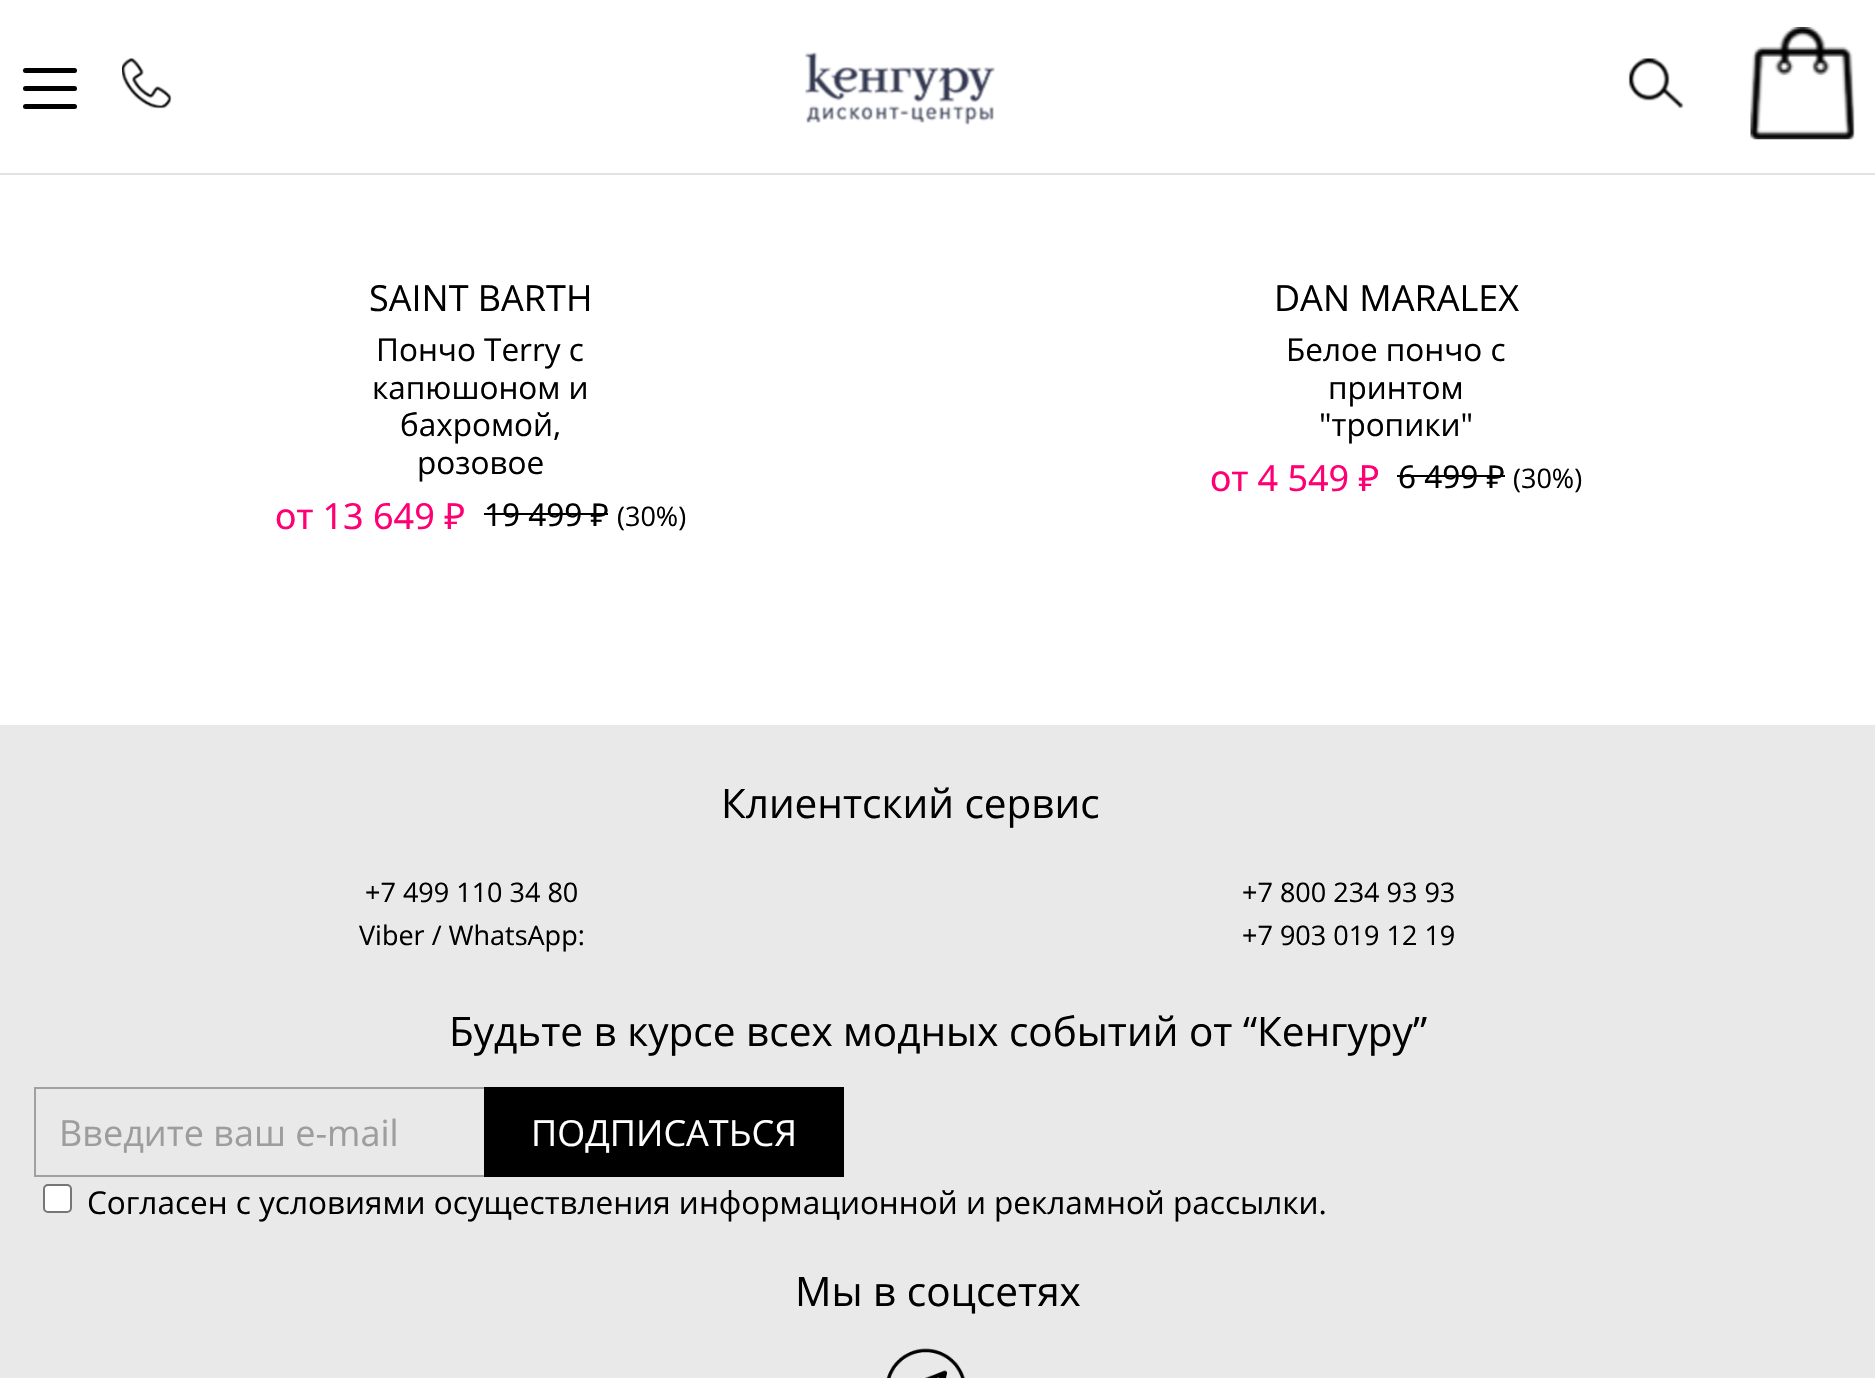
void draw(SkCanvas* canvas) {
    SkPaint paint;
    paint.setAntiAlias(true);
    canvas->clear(0xFFFFFFFF);
    paint.setColor(0xFFE2E2E2);
    canvas->drawRect(SkRect::MakeXYWH(0, 173, 1875, 2), paint);
    paint.setColor(0xFF000000);
    canvas->drawRoundRect(SkRect::MakeXYWH(23, 68, 54, 5), 2.5f, 2.5f, paint);
    canvas->drawRoundRect(SkRect::MakeXYWH(23, 86, 54, 5), 2.5f, 2.5f, paint);
    canvas->drawRoundRect(SkRect::MakeXYWH(23, 104, 54, 5), 2.5f, 2.5f, paint);
    canvas->drawImageRect(SkImages::DeferredFromEncodedData(SkData::MakeFromFileName("img1.png")), SkRect::MakeXYWH(122, 58, 50, 51), SkSamplingOptions());
    canvas->drawImageRect(SkImages::DeferredFromEncodedData(SkData::MakeFromFileName("img2.png")), SkRect::MakeXYWH(805, 52, 190, 73), SkSamplingOptions());
    canvas->drawImageRect(SkImages::DeferredFromEncodedData(SkData::MakeFromFileName("img3.png")), SkRect::MakeXYWH(1628, 58, 56, 51), SkSamplingOptions());
    canvas->drawImageRect(SkImages::DeferredFromEncodedData(SkData::MakeFromFileName("img4.png")), SkRect::MakeXYWH(1750, 27, 105, 113), SkSamplingOptions());
    SkFont font1(fontMgr->matchFamilyStyle("Open Sans", SkFontStyle::Normal()), 36);
    font1.setSubpixel(true);
    canvas->drawString("SAINT BARTH", 369, 311, font1, paint);
    SkFont font2(fontMgr->matchFamilyStyle("Open Sans", SkFontStyle::Normal()), 31.5f);
    font2.setSubpixel(true);
    canvas->drawString("Пончо Terry с", 376, 361, font2, paint);
    canvas->drawString("капюшоном и", 372, 399, font2, paint);
    canvas->drawString("бахромой,", 400, 436, font2, paint);
    canvas->drawString("розовое", 417, 474, font2, paint);
    SkFont font3(fontMgr->matchFamilyStyle("Noto Sans", SkFontStyle::Normal()), 36);
    font3.setSubpixel(true);
    paint.setColor(0xFFFF0074);
    canvas->drawString("от 13 649 ₽", 275, 529, font3, paint);
    SkFont font4(fontMgr->matchFamilyStyle("Noto Sans", SkFontStyle::Normal()), 31.5f);
    font4.setSubpixel(true);
    paint.setColor(0xFF000000);
    canvas->drawString("19 499 ₽", 484, 526, font4, paint);
    canvas->drawRect(SkRect::MakeXYWH(484, 513, 124, 2), paint);
    SkFont font5(fontMgr->matchFamilyStyle("Open Sans", SkFontStyle::Normal()), 27);
    font5.setSubpixel(true);
    canvas->drawString("(30%)", 617, 526, font5, paint);
    canvas->drawString("DAN MARALEX", 1274, 311, font1, paint);
    canvas->drawString("Белое пончо с", 1286, 361, font2, paint);
    canvas->drawString("принтом", 1328, 399, font2, paint);
    canvas->drawString("\"тропики\"", 1319, 436, font2, paint);
    paint.setColor(0xFFFF0074);
    canvas->drawString("от 4 549 ₽", 1210, 491, font3, paint);
    paint.setColor(0xFF000000);
    canvas->drawString("6 499 ₽", 1398, 488, font4, paint);
    canvas->drawRect(SkRect::MakeXYWH(1397, 475, 108, 2), paint);
    canvas->drawString("(30%)", 1513, 488, font5, paint);
    paint.setColor(0xFFE9E9E9);
    canvas->drawRect(SkRect::MakeXYWH(0, 725, 1875, 653), paint);
    SkFont font6(fontMgr->matchFamilyStyle("Open Sans", SkFontStyle::Normal()), 40.5f);
    font6.setSubpixel(true);
    paint.setColor(0xFF000000);
    canvas->drawString("Клиентский сервис", 721, 818, font6, paint);
    canvas->drawString("+7 499 110 34 80", 365, 902, font5, paint);
    canvas->drawString("+7 800 234 93 93", 1242, 902, font5, paint);
    canvas->drawString("Viber / WhatsApp:", 359, 945, font5, paint);
    canvas->drawString("+7 903 019 12 19", 1242, 945, font5, paint);
    canvas->drawString("Будьте в курсе всех модных событий от “Кенгуру”", 449, 1046, font6, paint);
    paint.setColor(0xFFA0A0A0);
    canvas->drawRect(SkRect::MakeXYWH(34, 1087, 450, 2), paint);
    canvas->drawRect(SkRect::MakeXYWH(34, 1175, 450, 2), paint);
    canvas->drawRect(SkRect::MakeXYWH(34, 1087, 2, 90), paint);
    paint.setColor(0xFF9D9D9D);
    canvas->drawString("Введите ваш e-mail", 59, 1146, font1, paint);
    paint.setColor(0xFF000000);
    canvas->drawRect(SkRect::MakeXYWH(484, 1087, 360, 90), paint);
    paint.setColor(0xFFFFFFFF);
    canvas->drawString("ПОДПИСАТЬСЯ", 531, 1146, font1, paint);
    canvas->drawRoundRect(SkRect::MakeXYWH(44, 1185, 27, 27), 4, 4, paint);
    paint.setStyle(SkPaint::kStroke_Style);
    paint.setStrokeWidth(2);
    paint.setColor(0xFF767676);
    canvas->drawRoundRect(SkRect::MakeXYWH(44, 1185, 27, 27), 4, 4, paint);
    paint.setStyle(SkPaint::kFill_Style);
    paint.setColor(0xFF000000);
    canvas->drawString("Согласен с условиями осуществления информационной и рекламной рассылки.", 87, 1214, font2, paint);
    canvas->drawString("Мы в соцсетях", 795, 1306, font6, paint);
    canvas->drawImageRect(SkImages::DeferredFromEncodedData(SkData::MakeFromFileName("img5.png")), SkRect::MakeXYWH(886, 1348, 79, 30), SkSamplingOptions());
}
